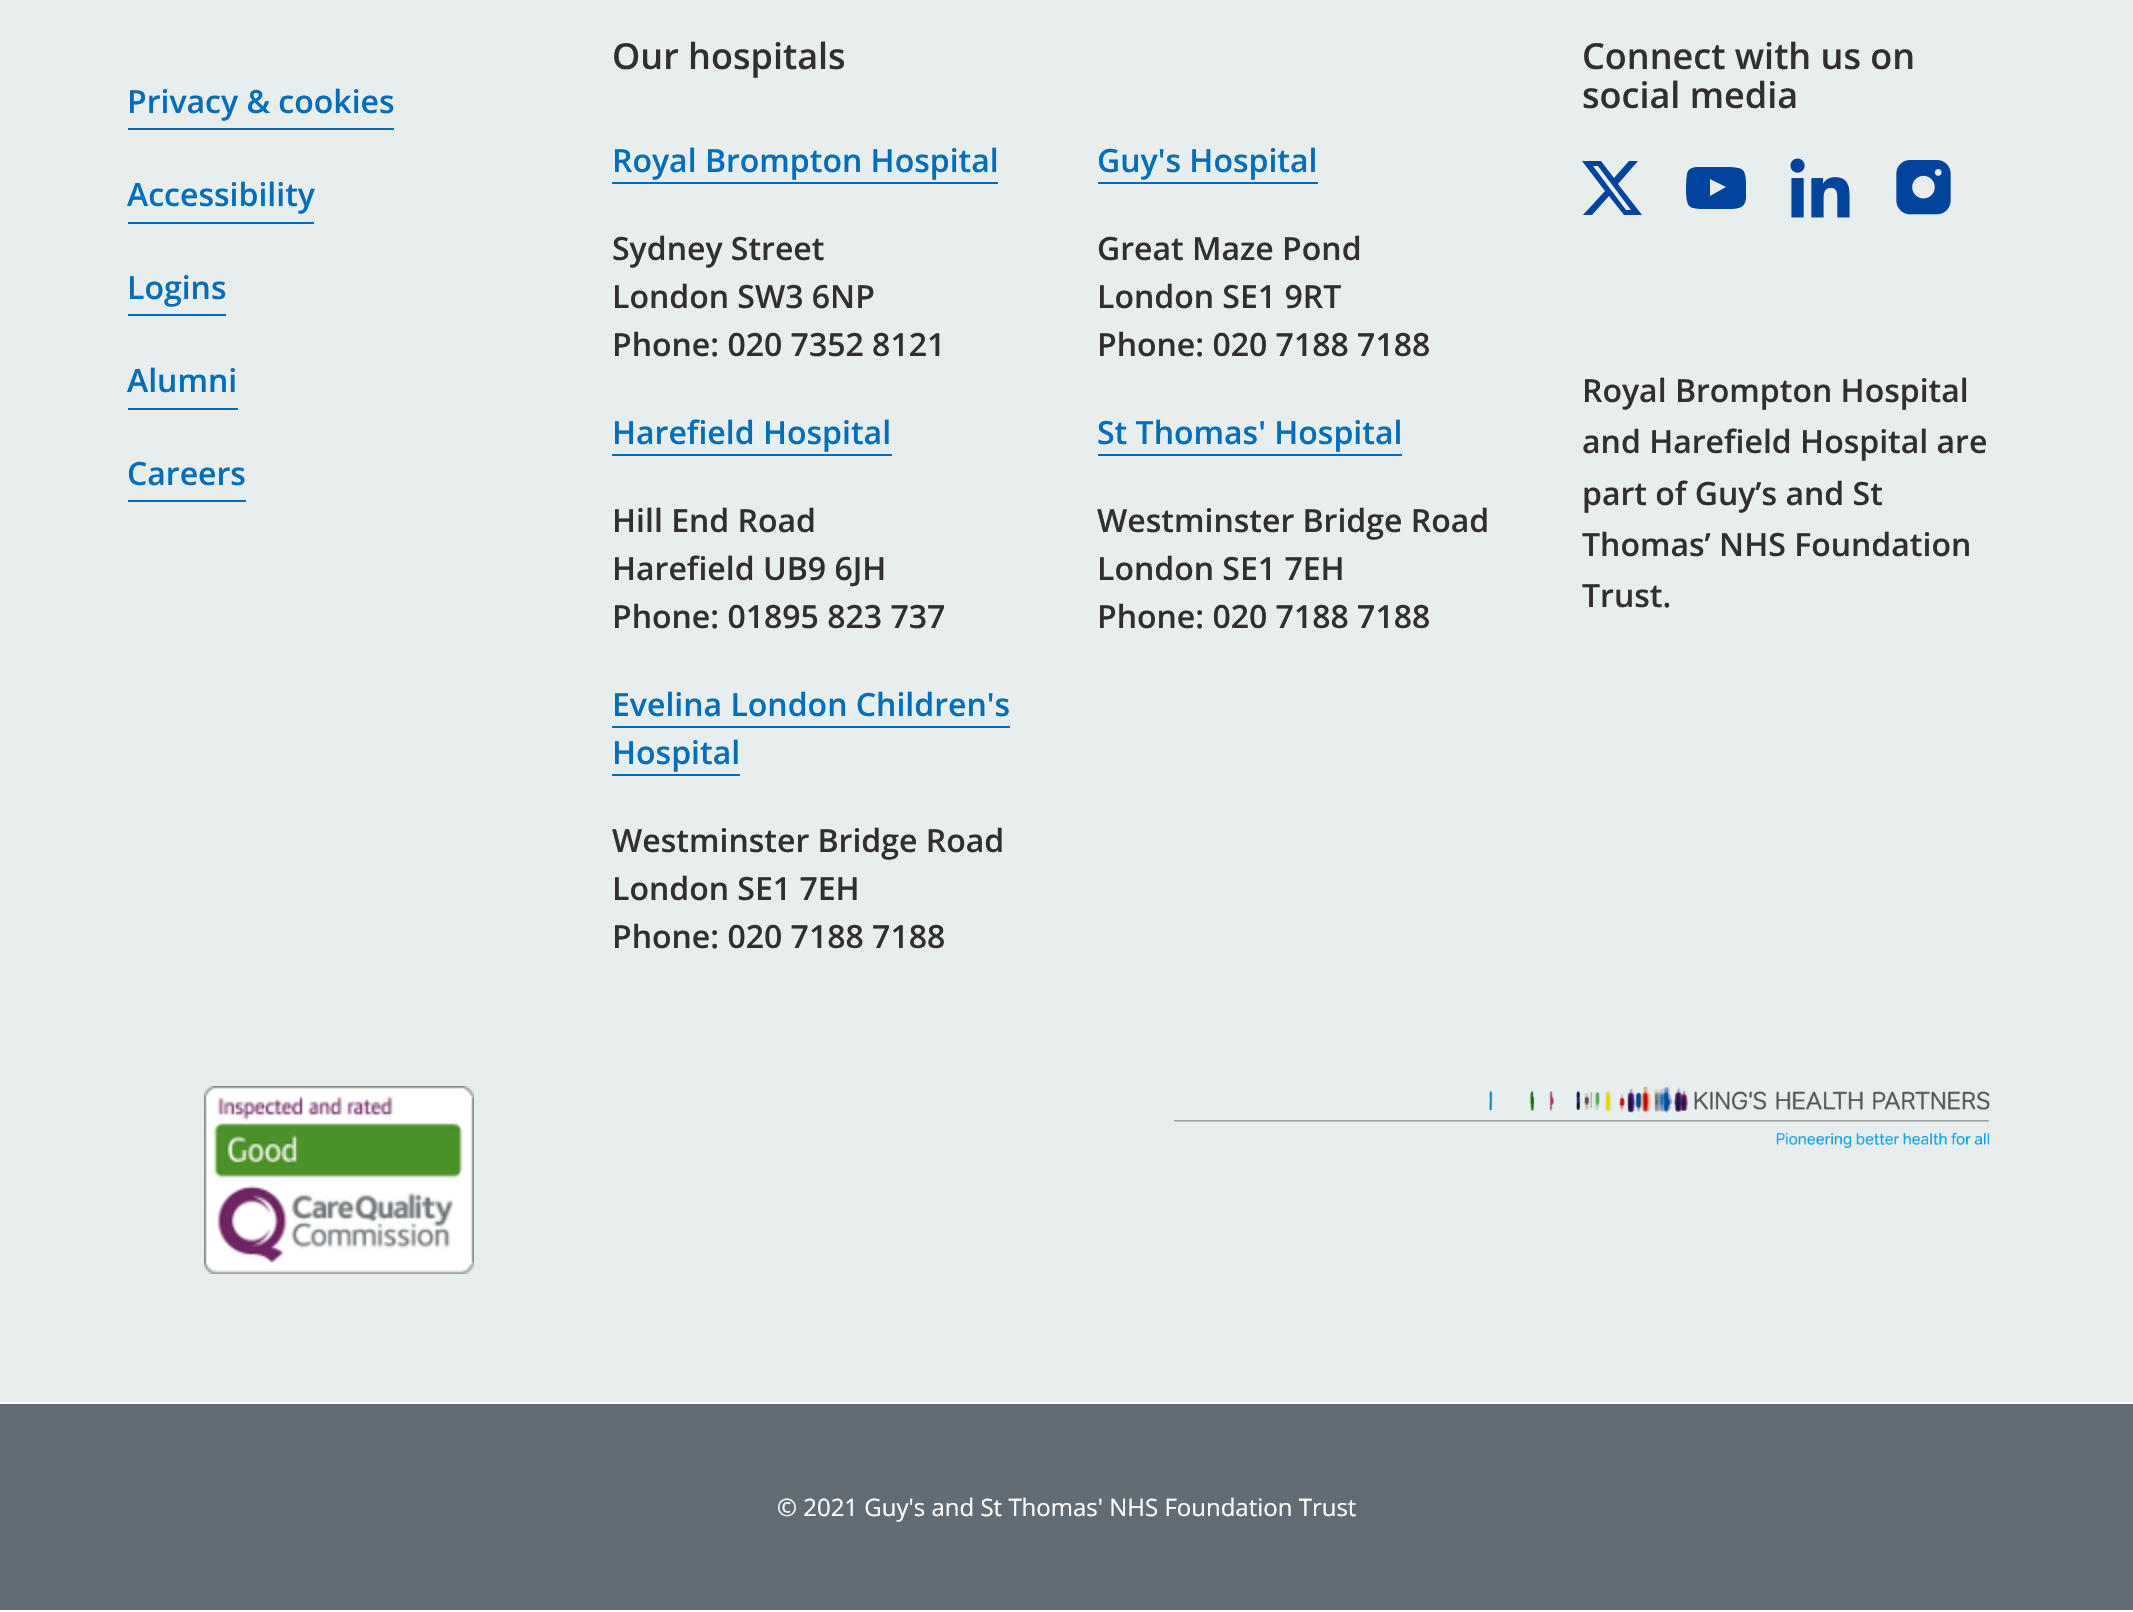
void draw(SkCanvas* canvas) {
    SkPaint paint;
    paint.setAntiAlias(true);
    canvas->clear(0xFFFFFFFF);
    paint.setColor(0xFFE8EDEE);
    canvas->drawRect(SkRect::MakeXYWH(0, 0, 2133, 1402), paint);
    paint.setColor(0xFF006DBB);
    canvas->drawRect(SkRect::MakeXYWH(128, 128, 266, 2), paint);
    SkFont font1(fontMgr->matchFamilyStyle("Open Sans", SkFontStyle(600, SkFontStyle::kNormal_Width, SkFontStyle::kUpright_Slant)), 32);
    font1.setSubpixel(true);
    canvas->drawString("Privacy & cookies", 127, 113, font1, paint);
    canvas->drawRect(SkRect::MakeXYWH(128, 222, 186, 2), paint);
    canvas->drawString("Accessibility", 127, 206, font1, paint);
    canvas->drawRect(SkRect::MakeXYWH(128, 314, 98, 2), paint);
    canvas->drawString("Logins", 127, 299, font1, paint);
    canvas->drawRect(SkRect::MakeXYWH(128, 408, 110, 2), paint);
    canvas->drawString("Alumni", 127, 392, font1, paint);
    canvas->drawRect(SkRect::MakeXYWH(128, 500, 118, 2), paint);
    canvas->drawString("Careers", 127, 485, font1, paint);
    SkFont font2(fontMgr->matchFamilyStyle("Open Sans", SkFontStyle(600, SkFontStyle::kNormal_Width, SkFontStyle::kUpright_Slant)), 36);
    font2.setSubpixel(true);
    paint.setColor(0xFF322F2F);
    canvas->drawString("Our hospitals", 612, 69, font2, paint);
    paint.setColor(0xFF006DBB);
    canvas->drawString("Royal Brompton Hospital", 612, 172, font1, paint);
    canvas->drawRect(SkRect::MakeXYWH(612, 182, 386, 2), paint);
    paint.setColor(0xFF322F2F);
    canvas->drawString("Sydney Street", 612, 260, font1, paint);
    canvas->drawString("London SW3 6NP", 612, 308, font1, paint);
    canvas->drawString("Phone: 020 7352 8121", 612, 356, font1, paint);
    paint.setColor(0xFF006DBB);
    canvas->drawString("Harefield Hospital", 612, 444, font1, paint);
    canvas->drawRect(SkRect::MakeXYWH(612, 454, 280, 2), paint);
    paint.setColor(0xFF322F2F);
    canvas->drawString("Hill End Road", 612, 532, font1, paint);
    canvas->drawString("Harefield UB9 6JH", 612, 580, font1, paint);
    canvas->drawString("Phone: 01895 823 737", 612, 628, font1, paint);
    paint.setColor(0xFF006DBB);
    canvas->drawString("Evelina London Children's", 612, 716, font1, paint);
    canvas->drawRect(SkRect::MakeXYWH(612, 726, 398, 2), paint);
    canvas->drawString("Hospital", 612, 764, font1, paint);
    canvas->drawRect(SkRect::MakeXYWH(612, 774, 128, 2), paint);
    paint.setColor(0xFF322F2F);
    canvas->drawString("Westminster Bridge Road", 612, 852, font1, paint);
    canvas->drawString("London SE1 7EH", 612, 900, font1, paint);
    canvas->drawString("Phone: 020 7188 7188", 612, 948, font1, paint);
    paint.setColor(0xFF006DBB);
    canvas->drawString("Guy's Hospital", 1097, 172, font1, paint);
    canvas->drawRect(SkRect::MakeXYWH(1098, 182, 220, 2), paint);
    paint.setColor(0xFF322F2F);
    canvas->drawString("Great Maze Pond", 1097, 260, font1, paint);
    canvas->drawString("London SE1 9RT", 1097, 308, font1, paint);
    canvas->drawString("Phone: 020 7188 7188", 1097, 356, font1, paint);
    paint.setColor(0xFF006DBB);
    canvas->drawString("St Thomas' Hospital", 1097, 444, font1, paint);
    canvas->drawRect(SkRect::MakeXYWH(1098, 454, 304, 2), paint);
    paint.setColor(0xFF322F2F);
    canvas->drawString("Westminster Bridge Road", 1097, 532, font1, paint);
    canvas->drawString("London SE1 7EH", 1097, 580, font1, paint);
    canvas->drawString("Phone: 020 7188 7188", 1097, 628, font1, paint);
    canvas->drawString("Connect with us on", 1582, 69, font2, paint);
    canvas->drawString("social media", 1582, 108, font2, paint);
    paint.setColor(0xFF00449D);
    canvas->drawPath(SkPathBuilder().moveTo(1629, 161).lineTo(1638, 161).lineTo(1618, 184).lineTo(1642, 215).lineTo(1624, 215).lineTo(1609, 196).lineTo(1592, 215).lineTo(1583, 215).lineTo(1605, 191).lineTo(1582, 161).lineTo(1601, 161).lineTo(1614, 178).close().moveTo(1626, 210).lineTo(1631, 210).lineTo(1598, 166).lineTo(1593, 166).close().detach(), paint);
    canvas->save();
    canvas->clipRect(SkRect::MakeXYWH(1686, 156, 60, 64));
    canvas->drawPath(SkPathBuilder(SkPathFillType::kEvenOdd).moveTo(1710, 196).lineTo(1726, 187).lineTo(1710, 179).close().moveTo(1716, 167).lineTo(1731, 167).cubicTo(1743, 168, 1745, 169, 1746, 181).cubicTo(1748, 211, 1744, 209, 1716, 209).lineTo(1700, 209).cubicTo(1688, 208, 1687, 206, 1686, 193).cubicTo(1686, 187, 1686, 180, 1687, 174).cubicTo(1688, 167, 1695, 167, 1701, 167).close().detach(), paint);
    canvas->restore();
    canvas->drawImageRect(SkImages::DeferredFromEncodedData(SkData::MakeFromFileName("img1.png")), SkRect::MakeXYWH(1790, 158, 60, 60), SkSamplingOptions());
    canvas->drawImageRect(SkImages::DeferredFromEncodedData(SkData::MakeFromFileName("img2.png")), SkRect::MakeXYWH(1896, 160, 55, 55), SkSamplingOptions());
    paint.setColor(0xFF322F2F);
    canvas->drawString("Royal Brompton Hospital", 1582, 402, font1, paint);
    canvas->drawString("and Harefield Hospital are", 1582, 453, font1, paint);
    canvas->drawString("part of Guy’s and St", 1582, 505, font1, paint);
    canvas->drawString("Thomas’ NHS Foundation", 1582, 556, font1, paint);
    canvas->drawString("Trust.", 1582, 607, font1, paint);
    canvas->drawImageRect(SkImages::DeferredFromEncodedData(SkData::MakeFromFileName("img3.png")), SkRect::MakeXYWH(204, 1086, 270, 188), SkSamplingOptions());
    canvas->drawImageRect(SkImages::DeferredFromEncodedData(SkData::MakeFromFileName("img4.png")), SkRect::MakeXYWH(1174, 1086, 816, 62), SkSamplingOptions());
    paint.setColor(0xFF616C74);
    canvas->drawRect(SkRect::MakeXYWH(0, 1404, 2133, 206), paint);
    SkFont font3(fontMgr->matchFamilyStyle("Open Sans", SkFontStyle::Normal()), 24);
    font3.setSubpixel(true);
    paint.setColor(0xFFFFFFFF);
    canvas->drawString("© 2021 Guy's and St Thomas' NHS Foundation Trust", 777, 1516, font3, paint);
}
